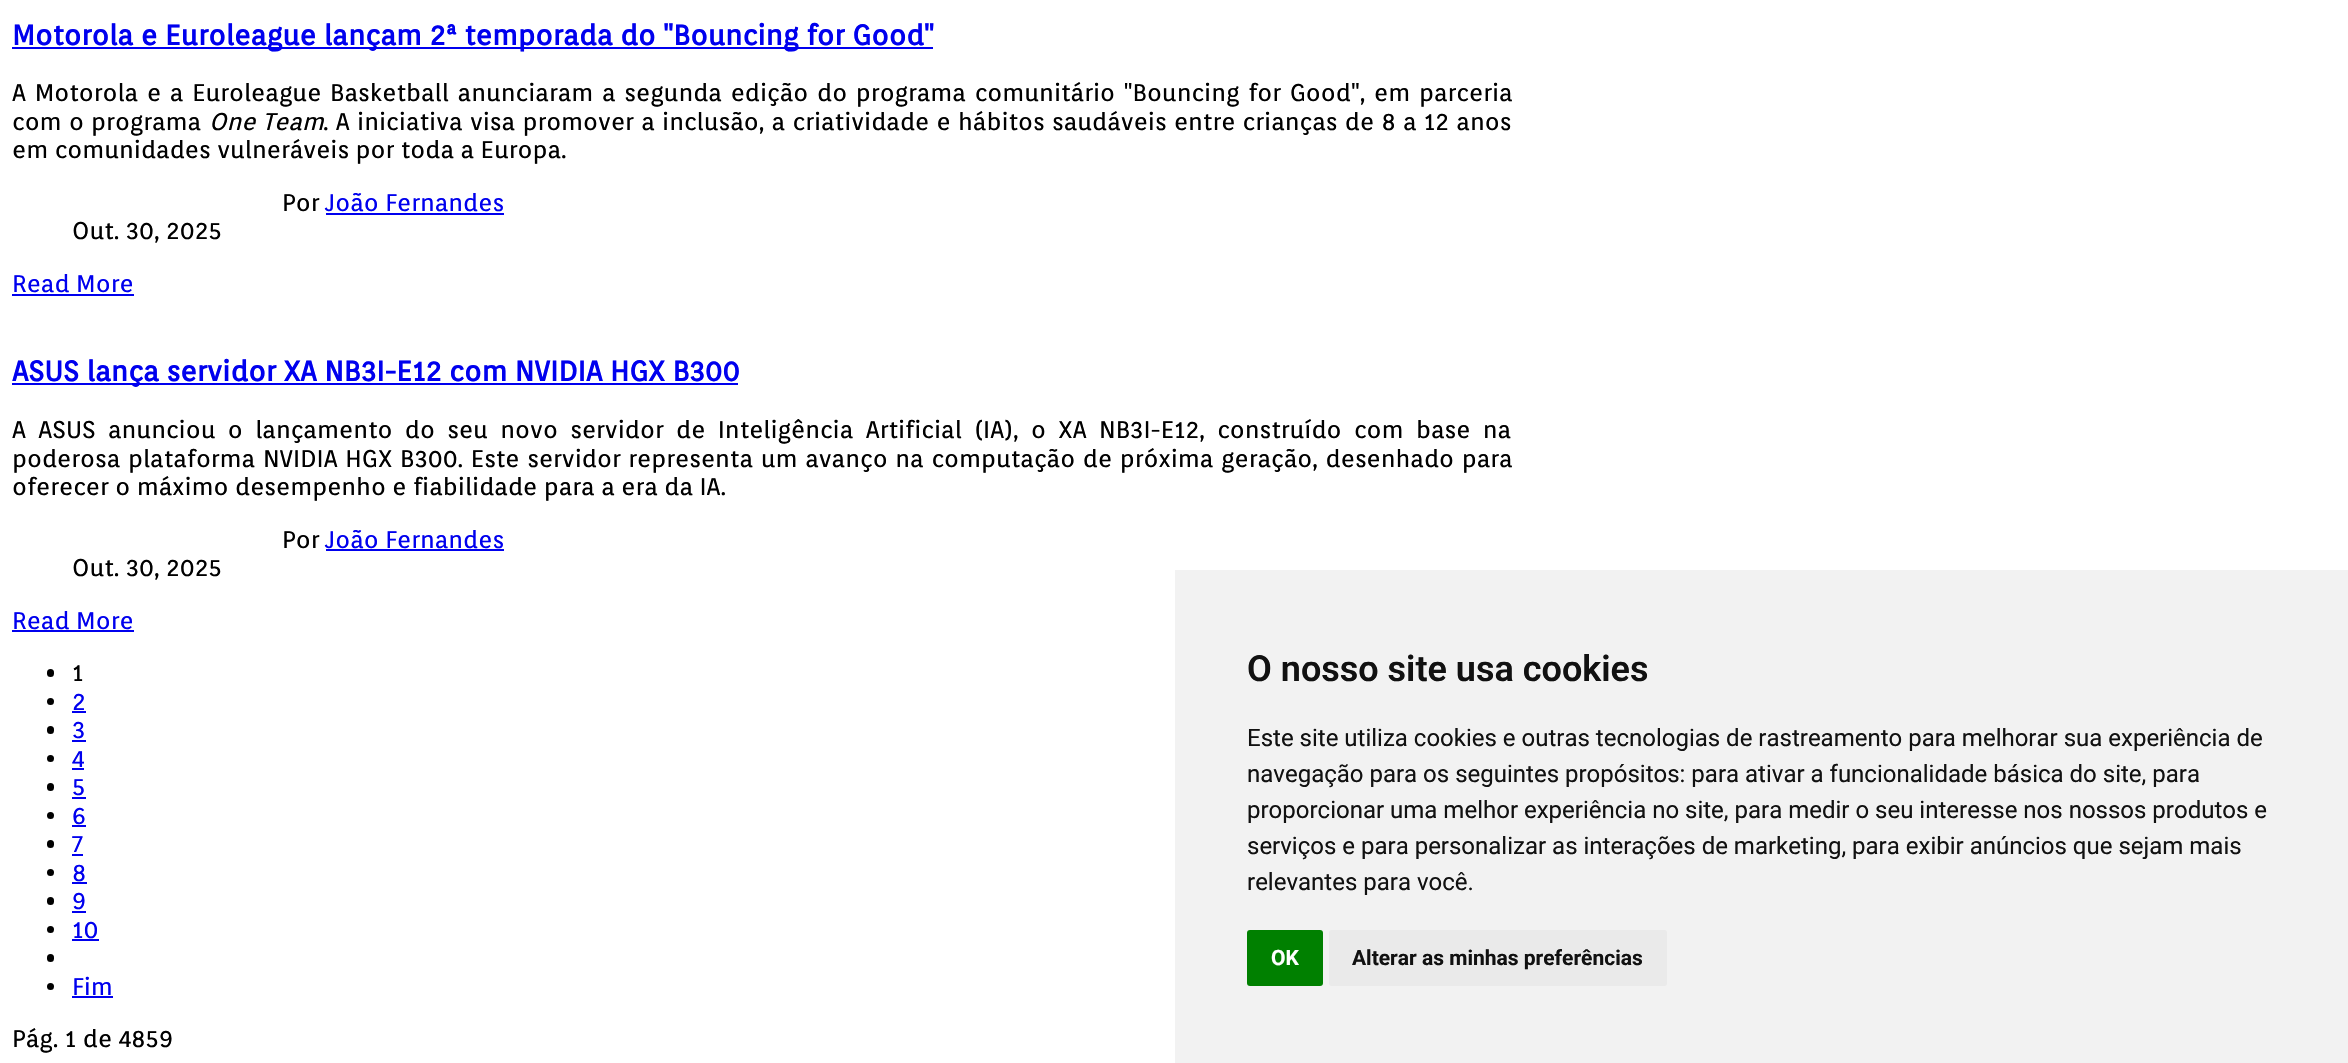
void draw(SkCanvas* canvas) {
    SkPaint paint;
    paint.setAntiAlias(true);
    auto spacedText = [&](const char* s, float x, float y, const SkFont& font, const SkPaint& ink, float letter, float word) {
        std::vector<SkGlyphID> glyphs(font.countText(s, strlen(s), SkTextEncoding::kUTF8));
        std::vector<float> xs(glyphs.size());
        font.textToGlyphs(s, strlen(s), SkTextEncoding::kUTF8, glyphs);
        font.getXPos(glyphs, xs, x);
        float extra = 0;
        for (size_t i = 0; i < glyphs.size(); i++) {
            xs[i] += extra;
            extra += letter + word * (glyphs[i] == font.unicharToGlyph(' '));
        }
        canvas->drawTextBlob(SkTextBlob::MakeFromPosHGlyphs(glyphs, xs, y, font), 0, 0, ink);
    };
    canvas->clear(0xFFFFFFFF);
    paint.setColor(0xFF0000EE);
    canvas->drawRect(SkRect::MakeXYWH(12, 47, 921, 2), paint);
    SkFont font1(fontMgr->matchFamilyStyle("Orienta", SkFontStyle::Bold()), 28.1f);
    font1.setSubpixel(true);
    canvas->drawString("Motorola e Euroleague lançam 2ª temporada do \"Bouncing for Good\"", 12, 45, font1, paint);
    SkFont font2(fontMgr->matchFamilyStyle("Orienta", SkFontStyle::Normal()), 24);
    font2.setSubpixel(true);
    paint.setColor(0xFF000000);
    spacedText("A Motorola e a Euroleague Basketball anunciaram a segunda edição do programa comunitário \"Bouncing for Good\", em parceria", 12, 101, font2, paint, 0, 2.25f);
    spacedText("com o programa", 12, 130, font2, paint, 0, 0.8f);
    SkFont font3(fontMgr->matchFamilyStyle("Orienta", SkFontStyle::Italic()), 24);
    font3.setSubpixel(true);
    spacedText("One Team", 209, 130, font3, paint, 0, 0.8f);
    spacedText(". A iniciativa visa promover a inclusão, a criatividade e hábitos saudáveis entre crianças de 8 a 12 anos", 323, 130, font2, paint, 0, 0.8f);
    canvas->drawString("em comunidades vulneráveis por toda a Europa.", 12, 158, font2, paint);
    canvas->drawString("Por", 282, 211, font2, paint);
    paint.setColor(0xFF0000EE);
    canvas->drawString("João Fernandes", 325, 211, font2, paint);
    canvas->drawRect(SkRect::MakeXYWH(326, 213, 178, 2), paint);
    paint.setColor(0xFF000000);
    canvas->drawString("Out. 30, 2025", 72, 239, font2, paint);
    paint.setColor(0xFF0000EE);
    canvas->drawString("Read More", 12, 292, font2, paint);
    canvas->drawRect(SkRect::MakeXYWH(12, 294, 122, 2), paint);
    canvas->drawRect(SkRect::MakeXYWH(12, 383, 726, 2), paint);
    canvas->drawString("ASUS lança servidor XA NB3I-E12 com NVIDIA HGX B300", 12, 381, font1, paint);
    paint.setColor(0xFF000000);
    spacedText("A ASUS anunciou o lançamento do seu novo servidor de Inteligência Artificial (IA), o XA NB3I-E12, construído com base na", 12, 438, font2, paint, 0, 5.9f);
    spacedText("poderosa plataforma NVIDIA HGX B300. Este servidor representa um avanço na computação de próxima geração, desenhado para", 12, 467, font2, paint, 0, 1.2f);
    canvas->drawString("oferecer o máximo desempenho e fiabilidade para a era da IA.", 12, 495, font2, paint);
    canvas->drawString("Por", 282, 548, font2, paint);
    paint.setColor(0xFF0000EE);
    canvas->drawString("João Fernandes", 325, 548, font2, paint);
    canvas->drawRect(SkRect::MakeXYWH(326, 549, 178, 2), paint);
    paint.setColor(0xFF000000);
    canvas->drawString("Out. 30, 2025", 72, 576, font2, paint);
    paint.setColor(0xFF0000EE);
    canvas->drawString("Read More", 12, 629, font2, paint);
    canvas->drawRect(SkRect::MakeXYWH(12, 630, 122, 2), paint);
    paint.setColor(0xFF000000);
    canvas->drawRoundRect(SkRect::MakeXYWH(47, 669, 7, 8), 3.5f, 3.5f, paint);
    canvas->drawString("1", 72, 681, font2, paint);
    canvas->drawCircle(50.5f, 701.5f, 3.5f, paint);
    paint.setColor(0xFF0000EE);
    canvas->drawString("2", 72, 710, font2, paint);
    canvas->drawRect(SkRect::MakeXYWH(72, 711, 14, 2), paint);
    paint.setColor(0xFF000000);
    canvas->drawRoundRect(SkRect::MakeXYWH(47, 726, 7, 8), 3.5f, 3.5f, paint);
    paint.setColor(0xFF0000EE);
    canvas->drawString("3", 72, 738, font2, paint);
    canvas->drawRect(SkRect::MakeXYWH(72, 740, 14, 2), paint);
    paint.setColor(0xFF000000);
    canvas->drawCircle(50.5f, 758.5f, 3.5f, paint);
    paint.setColor(0xFF0000EE);
    canvas->drawString("4", 72, 767, font2, paint);
    canvas->drawRect(SkRect::MakeXYWH(72, 768, 12, 2), paint);
    paint.setColor(0xFF000000);
    canvas->drawRoundRect(SkRect::MakeXYWH(47, 783, 7, 8), 3.5f, 3.5f, paint);
    paint.setColor(0xFF0000EE);
    canvas->drawString("5", 72, 795, font2, paint);
    canvas->drawRect(SkRect::MakeXYWH(72, 797, 14, 2), paint);
    paint.setColor(0xFF000000);
    canvas->drawCircle(50.5f, 815.5f, 3.5f, paint);
    paint.setColor(0xFF0000EE);
    canvas->drawString("6", 72, 824, font2, paint);
    canvas->drawRect(SkRect::MakeXYWH(72, 825, 14, 2), paint);
    paint.setColor(0xFF000000);
    canvas->drawRoundRect(SkRect::MakeXYWH(47, 840, 7, 8), 3.5f, 3.5f, paint);
    paint.setColor(0xFF0000EE);
    canvas->drawString("7", 72, 852, font2, paint);
    canvas->drawRect(SkRect::MakeXYWH(72, 854, 11, 2), paint);
    paint.setColor(0xFF000000);
    canvas->drawCircle(50.5f, 872.5f, 3.5f, paint);
    paint.setColor(0xFF0000EE);
    canvas->drawString("8", 72, 881, font2, paint);
    canvas->drawRect(SkRect::MakeXYWH(72, 882, 15, 2), paint);
    paint.setColor(0xFF000000);
    canvas->drawRoundRect(SkRect::MakeXYWH(47, 897, 7, 8), 3.5f, 3.5f, paint);
    paint.setColor(0xFF0000EE);
    canvas->drawString("9", 72, 909, font2, paint);
    canvas->drawRect(SkRect::MakeXYWH(72, 911, 14, 2), paint);
    paint.setColor(0xFF000000);
    canvas->drawCircle(50.5f, 929.5f, 3.5f, paint);
    paint.setColor(0xFF0000EE);
    canvas->drawString("10", 72, 938, font2, paint);
    canvas->drawRect(SkRect::MakeXYWH(72, 939, 27, 2), paint);
    paint.setColor(0xFF000000);
    canvas->drawRoundRect(SkRect::MakeXYWH(47, 954, 7, 8), 3.5f, 3.5f, paint);
    canvas->drawCircle(50.5f, 986.5f, 3.5f, paint);
    paint.setColor(0xFF0000EE);
    canvas->drawString("Fim", 72, 995, font2, paint);
    canvas->drawRect(SkRect::MakeXYWH(72, 996, 41, 2), paint);
    paint.setColor(0xFF000000);
    canvas->drawString("Pág. 1 de 4859", 12, 1047, font2, paint);
    paint.setColor(0xFFF2F2F2);
    canvas->drawRect(SkRect::MakeXYWH(1175, 570, 1173, 493), paint);
    SkFont font4(fontMgr->matchFamilyStyle("Roboto", SkFontStyle(600, SkFontStyle::kNormal_Width, SkFontStyle::kUpright_Slant)), 36);
    font4.setSubpixel(true);
    paint.setColor(0xFF111111);
    canvas->drawString("O nosso site usa cookies", 1247, 681, font4, paint);
    SkFont font5(fontMgr->matchFamilyStyle("Roboto", SkFontStyle::Normal()), 24);
    font5.setSubpixel(true);
    canvas->drawString("Este site utiliza cookies e outras tecnologias de rastreamento para melhorar sua experiência de", 1247, 746, font5, paint);
    canvas->drawString("navegação para os seguintes propósitos: para ativar a funcionalidade básica do site, para", 1247, 782, font5, paint);
    canvas->drawString("proporcionar uma melhor experiência no site, para medir o seu interesse nos nossos produtos e", 1247, 818, font5, paint);
    canvas->drawString("serviços e para personalizar as interações de marketing, para exibir anúncios que sejam mais", 1247, 854, font5, paint);
    canvas->drawString("relevantes para você.", 1247, 890, font5, paint);
    paint.setColor(0xFF008000);
    canvas->drawRoundRect(SkRect::MakeXYWH(1247, 930, 76, 56), 3, 3, paint);
    SkFont font6(fontMgr->matchFamilyStyle("Roboto", SkFontStyle::Bold()), 21);
    font6.setSubpixel(true);
    paint.setColor(0xFFFFFFFF);
    canvas->drawString("OK", 1271, 965, font6, paint);
    paint.setColor(0xFFEAEAEA);
    canvas->drawRoundRect(SkRect::MakeXYWH(1329, 930, 338, 56), 3, 3, paint);
    paint.setColor(0xFF111111);
    canvas->drawString("Alterar as minhas preferências", 1352, 965, font6, paint);
}
